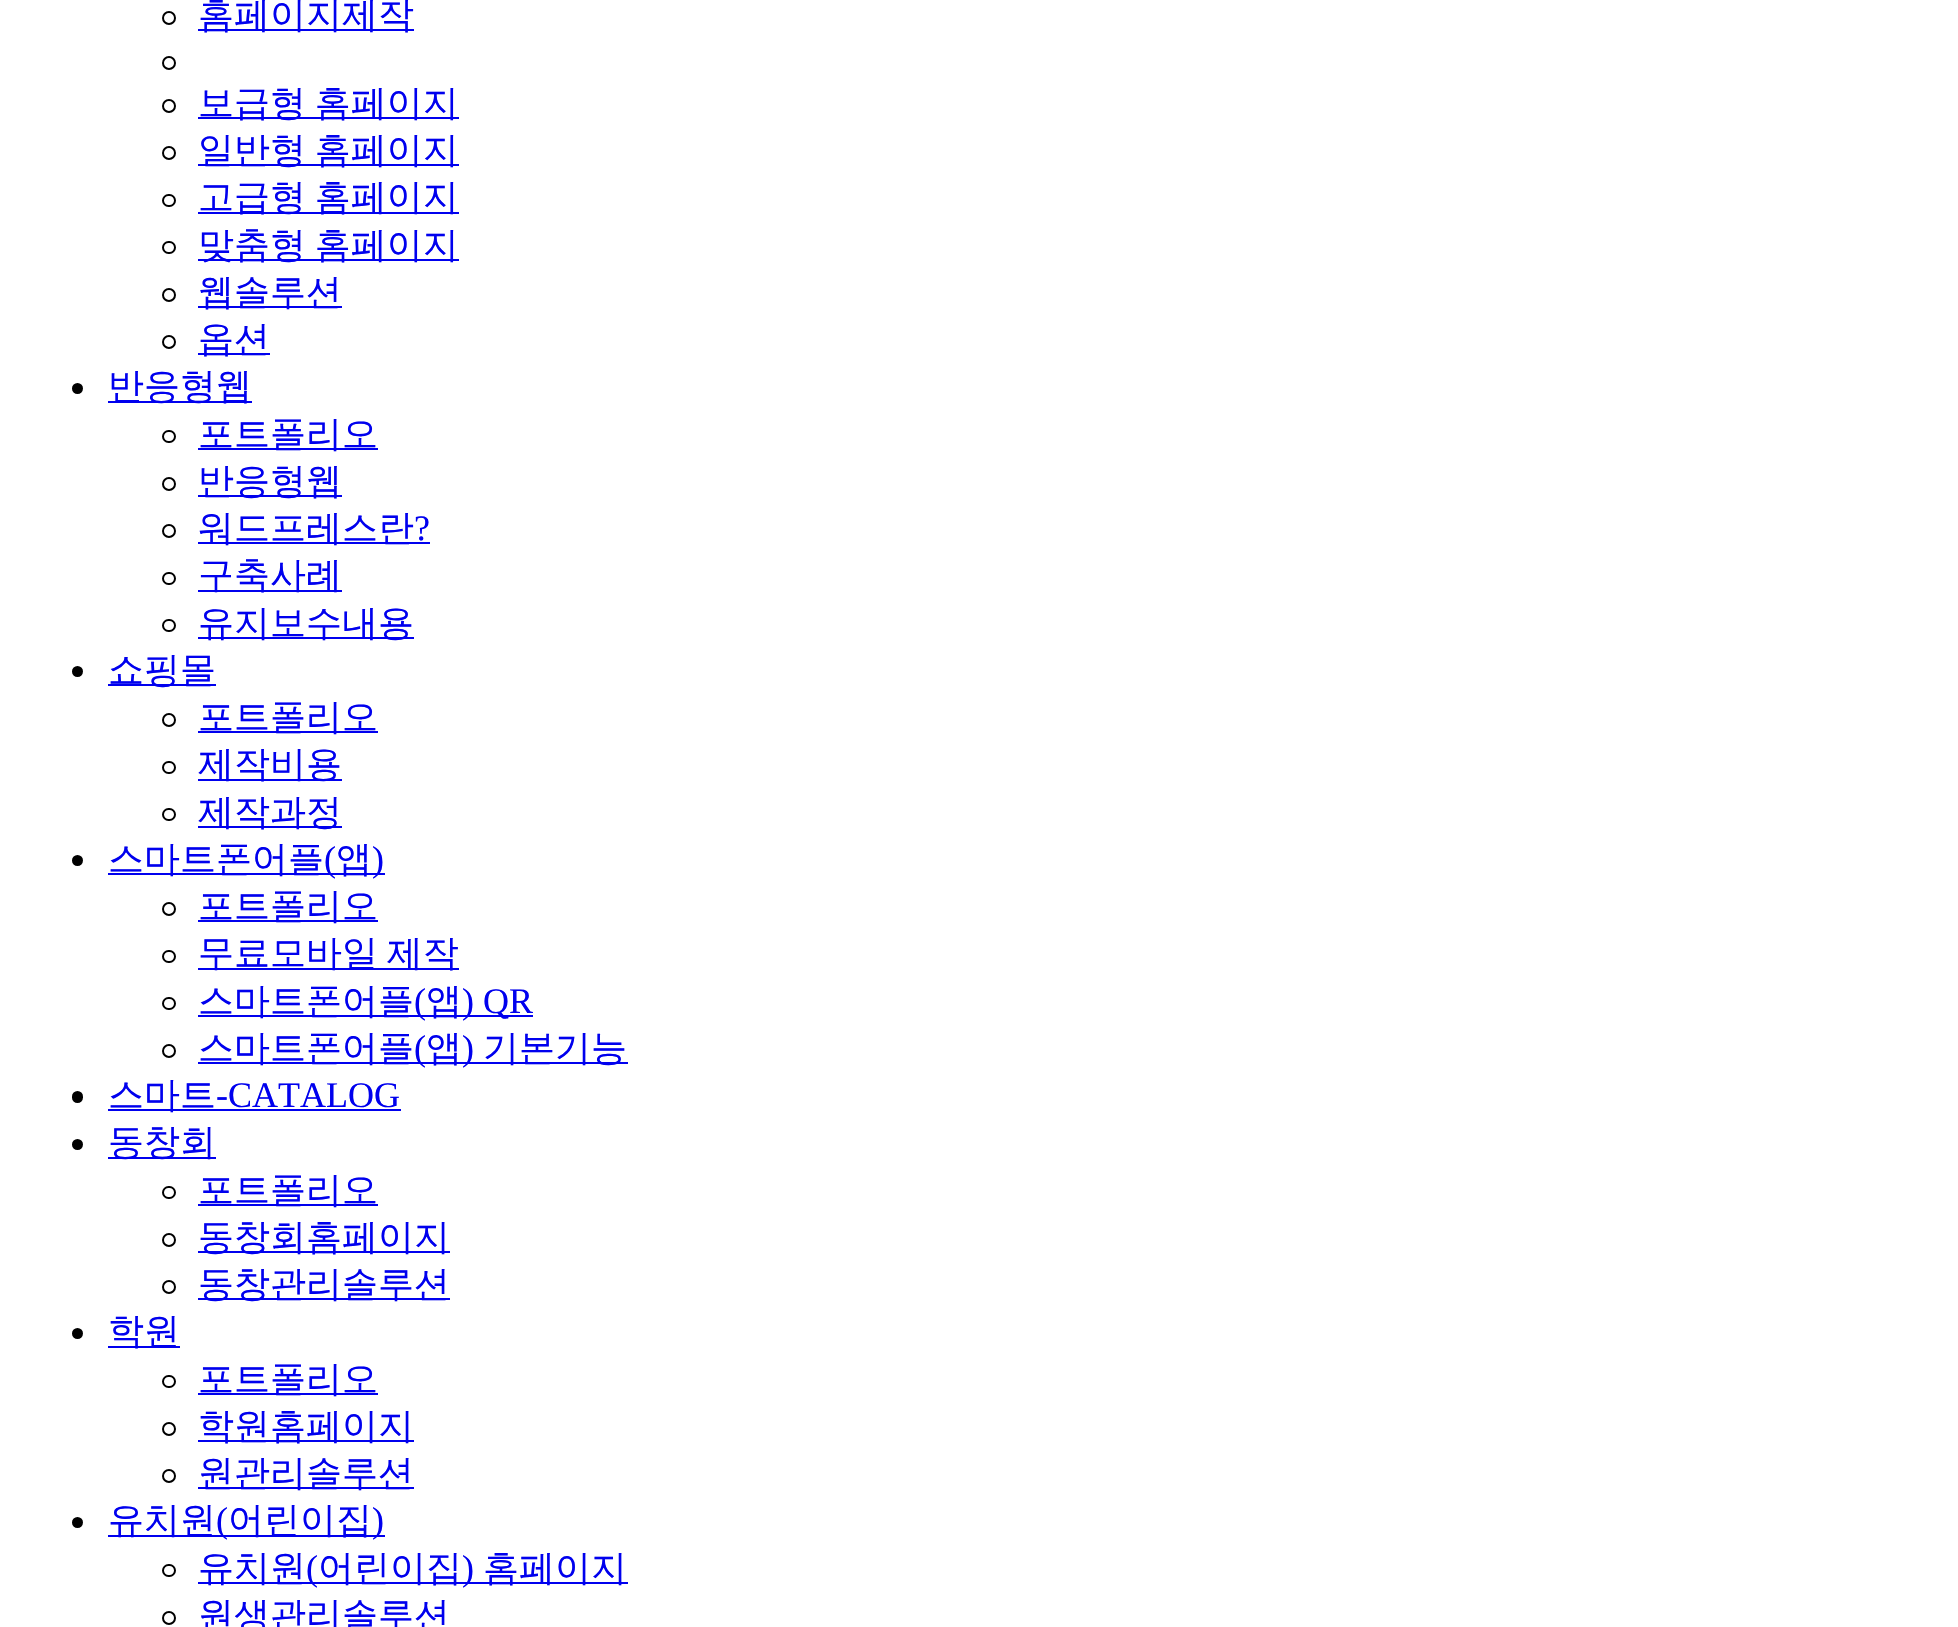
void draw(SkCanvas* canvas) {
    SkPaint paint;
    paint.setAntiAlias(true);
    auto spacedText = [&](const char* s, float x, float y, const SkFont& font, const SkPaint& ink, float letter, float word) {
        std::vector<SkGlyphID> glyphs(font.countText(s, strlen(s), SkTextEncoding::kUTF8));
        std::vector<float> xs(glyphs.size());
        font.textToGlyphs(s, strlen(s), SkTextEncoding::kUTF8, glyphs);
        font.getXPos(glyphs, xs, x);
        float extra = 0;
        for (size_t i = 0; i < glyphs.size(); i++) {
            xs[i] += extra;
            extra += letter + word * (glyphs[i] == font.unicharToGlyph(' '));
        }
        canvas->drawTextBlob(SkTextBlob::MakeFromPosHGlyphs(glyphs, xs, y, font), 0, 0, ink);
    };
    canvas->clear(0xFFFFFFFF);
    paint.setStyle(SkPaint::kStroke_Style);
    paint.setStrokeWidth(2);
    paint.setColor(0xFF000000);
    canvas->drawCircle(169, 18, 6, paint);
    paint.setStyle(SkPaint::kFill_Style);
    paint.setColor(0xFF0000EE);
    canvas->drawRect(SkRect::MakeXYWH(198, 29, 216, 2), paint);
    SkFont font1(fontMgr->matchFamilyStyle("WenQuanYi Zen Hei", SkFontStyle(500, SkFontStyle::kNormal_Width, SkFontStyle::kUpright_Slant)), 36);
    font1.setSubpixel(true);
    canvas->drawString("홈페이지제작", 198, 27, font1, paint);
    paint.setStyle(SkPaint::kStroke_Style);
    paint.setColor(0xFF000000);
    canvas->drawCircle(169, 63, 6, paint);
    canvas->drawCircle(169, 106, 6, paint);
    paint.setStyle(SkPaint::kFill_Style);
    paint.setColor(0xFF0000EE);
    canvas->drawRect(SkRect::MakeXYWH(198, 117, 261, 2), paint);
    spacedText("보급형 홈페이지", 198, 115, font1, paint, 0, -2);
    paint.setStyle(SkPaint::kStroke_Style);
    paint.setColor(0xFF000000);
    canvas->drawCircle(169, 153, 6, paint);
    paint.setStyle(SkPaint::kFill_Style);
    paint.setColor(0xFF0000EE);
    canvas->drawRect(SkRect::MakeXYWH(198, 164, 261, 2), paint);
    spacedText("일반형 홈페이지", 198, 162, font1, paint, 0, -2);
    paint.setStyle(SkPaint::kStroke_Style);
    paint.setColor(0xFF000000);
    canvas->drawRoundRect(SkRect::MakeXYWH(163, 195, 12, 11), 5.5f, 5.5f, paint);
    paint.setStyle(SkPaint::kFill_Style);
    paint.setColor(0xFF0000EE);
    canvas->drawRect(SkRect::MakeXYWH(198, 212, 261, 2), paint);
    spacedText("고급형 홈페이지", 198, 209, font1, paint, 0, -2);
    paint.setStyle(SkPaint::kStroke_Style);
    paint.setColor(0xFF000000);
    canvas->drawRoundRect(SkRect::MakeXYWH(163, 242, 12, 11), 5.5f, 5.5f, paint);
    paint.setStyle(SkPaint::kFill_Style);
    paint.setColor(0xFF0000EE);
    canvas->drawRect(SkRect::MakeXYWH(198, 259, 261, 2), paint);
    spacedText("맞춤형 홈페이지", 198, 257, font1, paint, 0, -2);
    paint.setStyle(SkPaint::kStroke_Style);
    paint.setColor(0xFF000000);
    canvas->drawCircle(169, 295, 6, paint);
    paint.setStyle(SkPaint::kFill_Style);
    paint.setColor(0xFF0000EE);
    canvas->drawRect(SkRect::MakeXYWH(198, 306, 144, 2), paint);
    canvas->drawString("웹솔루션", 198, 304, font1, paint);
    paint.setStyle(SkPaint::kStroke_Style);
    paint.setColor(0xFF000000);
    canvas->drawCircle(169, 342, 6, paint);
    paint.setStyle(SkPaint::kFill_Style);
    paint.setColor(0xFF0000EE);
    canvas->drawRect(SkRect::MakeXYWH(198, 353, 72, 2), paint);
    canvas->drawString("옵션", 198, 351, font1, paint);
    paint.setColor(0xFF000000);
    canvas->drawCircle(77.5f, 388.5f, 5.5f, paint);
    paint.setColor(0xFF0000EE);
    canvas->drawRect(SkRect::MakeXYWH(108, 401, 144, 2), paint);
    canvas->drawString("반응형웹", 108, 398, font1, paint);
    paint.setStyle(SkPaint::kStroke_Style);
    paint.setColor(0xFF000000);
    canvas->drawRoundRect(SkRect::MakeXYWH(163, 431, 12, 11), 5.5f, 5.5f, paint);
    paint.setStyle(SkPaint::kFill_Style);
    paint.setColor(0xFF0000EE);
    canvas->drawRect(SkRect::MakeXYWH(198, 448, 180, 2), paint);
    canvas->drawString("포트폴리오", 198, 446, font1, paint);
    paint.setStyle(SkPaint::kStroke_Style);
    paint.setColor(0xFF000000);
    canvas->drawCircle(169, 484, 6, paint);
    paint.setStyle(SkPaint::kFill_Style);
    paint.setColor(0xFF0000EE);
    canvas->drawRect(SkRect::MakeXYWH(198, 495, 144, 2), paint);
    canvas->drawString("반응형웹", 198, 493, font1, paint);
    paint.setStyle(SkPaint::kStroke_Style);
    paint.setColor(0xFF000000);
    canvas->drawCircle(169, 531, 6, paint);
    paint.setStyle(SkPaint::kFill_Style);
    paint.setColor(0xFF0000EE);
    canvas->drawRect(SkRect::MakeXYWH(198, 542, 232, 2), paint);
    canvas->drawString("워드프레스란", 198, 540, font1, paint);
    SkFont font2(fontMgr->matchFamilyStyle("Liberation Serif", SkFontStyle::Normal()), 36);
    font2.setSubpixel(true);
    canvas->drawString("?", 414, 540, font2, paint);
    paint.setStyle(SkPaint::kStroke_Style);
    paint.setColor(0xFF000000);
    canvas->drawRoundRect(SkRect::MakeXYWH(163, 573, 12, 11), 5.5f, 5.5f, paint);
    paint.setStyle(SkPaint::kFill_Style);
    paint.setColor(0xFF0000EE);
    canvas->drawRect(SkRect::MakeXYWH(198, 590, 144, 2), paint);
    canvas->drawString("구축사례", 198, 587, font1, paint);
    paint.setStyle(SkPaint::kStroke_Style);
    paint.setColor(0xFF000000);
    canvas->drawRoundRect(SkRect::MakeXYWH(163, 620, 12, 11), 5.5f, 5.5f, paint);
    paint.setStyle(SkPaint::kFill_Style);
    paint.setColor(0xFF0000EE);
    canvas->drawRect(SkRect::MakeXYWH(198, 637, 216, 2), paint);
    canvas->drawString("유지보수내용", 198, 635, font1, paint);
    paint.setColor(0xFF000000);
    canvas->drawCircle(77.5f, 671.5f, 5.5f, paint);
    paint.setColor(0xFF0000EE);
    canvas->drawRect(SkRect::MakeXYWH(108, 684, 108, 2), paint);
    canvas->drawString("쇼핑몰", 108, 682, font1, paint);
    paint.setStyle(SkPaint::kStroke_Style);
    paint.setColor(0xFF000000);
    canvas->drawCircle(169, 720, 6, paint);
    paint.setStyle(SkPaint::kFill_Style);
    paint.setColor(0xFF0000EE);
    canvas->drawRect(SkRect::MakeXYWH(198, 731, 180, 2), paint);
    canvas->drawString("포트폴리오", 198, 729, font1, paint);
    paint.setStyle(SkPaint::kStroke_Style);
    paint.setColor(0xFF000000);
    canvas->drawRoundRect(SkRect::MakeXYWH(163, 762, 12, 11), 5.5f, 5.5f, paint);
    paint.setStyle(SkPaint::kFill_Style);
    paint.setColor(0xFF0000EE);
    canvas->drawRect(SkRect::MakeXYWH(198, 779, 144, 2), paint);
    canvas->drawString("제작비용", 198, 776, font1, paint);
    paint.setStyle(SkPaint::kStroke_Style);
    paint.setColor(0xFF000000);
    canvas->drawRoundRect(SkRect::MakeXYWH(163, 809, 12, 11), 5.5f, 5.5f, paint);
    paint.setStyle(SkPaint::kFill_Style);
    paint.setColor(0xFF0000EE);
    canvas->drawRect(SkRect::MakeXYWH(198, 826, 144, 2), paint);
    canvas->drawString("제작과정", 198, 824, font1, paint);
    paint.setColor(0xFF000000);
    canvas->drawCircle(77.5f, 860.5f, 5.5f, paint);
    paint.setColor(0xFF0000EE);
    canvas->drawRect(SkRect::MakeXYWH(108, 873, 277, 2), paint);
    canvas->drawString("스마트폰어플", 108, 871, font1, paint);
    canvas->drawString("(", 324, 871, font2, paint);
    canvas->drawString("앱", 336, 871, font1, paint);
    canvas->drawString(")", 372, 871, font2, paint);
    paint.setStyle(SkPaint::kStroke_Style);
    paint.setColor(0xFF000000);
    canvas->drawCircle(169, 909, 6, paint);
    paint.setStyle(SkPaint::kFill_Style);
    paint.setColor(0xFF0000EE);
    canvas->drawRect(SkRect::MakeXYWH(198, 920, 180, 2), paint);
    canvas->drawString("포트폴리오", 198, 918, font1, paint);
    paint.setStyle(SkPaint::kStroke_Style);
    paint.setColor(0xFF000000);
    canvas->drawRoundRect(SkRect::MakeXYWH(163, 951, 12, 11), 5.5f, 5.5f, paint);
    paint.setStyle(SkPaint::kFill_Style);
    paint.setColor(0xFF0000EE);
    canvas->drawRect(SkRect::MakeXYWH(198, 968, 261, 2), paint);
    spacedText("무료모바일 제작", 198, 965, font1, paint, 0, -2);
    paint.setStyle(SkPaint::kStroke_Style);
    paint.setColor(0xFF000000);
    canvas->drawRoundRect(SkRect::MakeXYWH(163, 998, 12, 11), 5.5f, 5.5f, paint);
    paint.setStyle(SkPaint::kFill_Style);
    paint.setColor(0xFF0000EE);
    canvas->drawRect(SkRect::MakeXYWH(198, 1015, 335, 2), paint);
    canvas->drawString("스마트폰어플", 198, 1013, font1, paint);
    canvas->drawString("(", 414, 1013, font2, paint);
    canvas->drawString("앱", 426, 1013, font1, paint);
    canvas->drawString(") QR", 462, 1013, font2, paint);
    paint.setStyle(SkPaint::kStroke_Style);
    paint.setColor(0xFF000000);
    canvas->drawCircle(169, 1051, 6, paint);
    paint.setStyle(SkPaint::kFill_Style);
    paint.setColor(0xFF0000EE);
    canvas->drawRect(SkRect::MakeXYWH(198, 1062, 430, 2), paint);
    canvas->drawString("스마트폰어플", 198, 1060, font1, paint);
    canvas->drawString("(", 414, 1060, font2, paint);
    canvas->drawString("앱", 426, 1060, font1, paint);
    canvas->drawString(")", 462, 1060, font2, paint);
    canvas->drawString("기본기능", 483, 1060, font1, paint);
    paint.setColor(0xFF000000);
    canvas->drawRoundRect(SkRect::MakeXYWH(72, 1091, 11, 12), 5.5f, 5.5f, paint);
    paint.setColor(0xFF0000EE);
    canvas->drawRect(SkRect::MakeXYWH(108, 1109, 293, 2), paint);
    canvas->drawString("스마트", 108, 1107, font1, paint);
    canvas->drawString("-CATALOG", 216, 1107, font2, paint);
    paint.setColor(0xFF000000);
    canvas->drawCircle(77.5f, 1144.5f, 5.5f, paint);
    paint.setColor(0xFF0000EE);
    canvas->drawRect(SkRect::MakeXYWH(108, 1157, 108, 2), paint);
    canvas->drawString("동창회", 108, 1154, font1, paint);
    paint.setStyle(SkPaint::kStroke_Style);
    paint.setColor(0xFF000000);
    canvas->drawRoundRect(SkRect::MakeXYWH(163, 1187, 12, 11), 5.5f, 5.5f, paint);
    paint.setStyle(SkPaint::kFill_Style);
    paint.setColor(0xFF0000EE);
    canvas->drawRect(SkRect::MakeXYWH(198, 1204, 180, 2), paint);
    canvas->drawString("포트폴리오", 198, 1202, font1, paint);
    paint.setStyle(SkPaint::kStroke_Style);
    paint.setColor(0xFF000000);
    canvas->drawCircle(169, 1240, 6, paint);
    paint.setStyle(SkPaint::kFill_Style);
    paint.setColor(0xFF0000EE);
    canvas->drawRect(SkRect::MakeXYWH(198, 1251, 252, 2), paint);
    canvas->drawString("동창회홈페이지", 198, 1249, font1, paint);
    paint.setStyle(SkPaint::kStroke_Style);
    paint.setColor(0xFF000000);
    canvas->drawCircle(169, 1287, 6, paint);
    paint.setStyle(SkPaint::kFill_Style);
    paint.setColor(0xFF0000EE);
    canvas->drawRect(SkRect::MakeXYWH(198, 1298, 252, 2), paint);
    canvas->drawString("동창관리솔루션", 198, 1296, font1, paint);
    paint.setColor(0xFF000000);
    canvas->drawCircle(77.5f, 1333.5f, 5.5f, paint);
    paint.setColor(0xFF0000EE);
    canvas->drawRect(SkRect::MakeXYWH(108, 1346, 72, 2), paint);
    canvas->drawString("학원", 108, 1343, font1, paint);
    paint.setStyle(SkPaint::kStroke_Style);
    paint.setColor(0xFF000000);
    canvas->drawRoundRect(SkRect::MakeXYWH(163, 1376, 12, 11), 5.5f, 5.5f, paint);
    paint.setStyle(SkPaint::kFill_Style);
    paint.setColor(0xFF0000EE);
    canvas->drawRect(SkRect::MakeXYWH(198, 1393, 180, 2), paint);
    canvas->drawString("포트폴리오", 198, 1391, font1, paint);
    paint.setStyle(SkPaint::kStroke_Style);
    paint.setColor(0xFF000000);
    canvas->drawCircle(169, 1429, 6, paint);
    paint.setStyle(SkPaint::kFill_Style);
    paint.setColor(0xFF0000EE);
    canvas->drawRect(SkRect::MakeXYWH(198, 1440, 216, 2), paint);
    canvas->drawString("학원홈페이지", 198, 1438, font1, paint);
    paint.setStyle(SkPaint::kStroke_Style);
    paint.setColor(0xFF000000);
    canvas->drawCircle(169, 1476, 6, paint);
    paint.setStyle(SkPaint::kFill_Style);
    paint.setColor(0xFF0000EE);
    canvas->drawRect(SkRect::MakeXYWH(198, 1487, 216, 2), paint);
    canvas->drawString("원관리솔루션", 198, 1485, font1, paint);
    paint.setColor(0xFF000000);
    canvas->drawCircle(77.5f, 1522.5f, 5.5f, paint);
    paint.setColor(0xFF0000EE);
    canvas->drawRect(SkRect::MakeXYWH(108, 1535, 277, 2), paint);
    canvas->drawString("유치원", 108, 1532, font1, paint);
    canvas->drawString("(", 216, 1532, font2, paint);
    canvas->drawString("어린이집", 228, 1532, font1, paint);
    canvas->drawString(")", 372, 1532, font2, paint);
    paint.setStyle(SkPaint::kStroke_Style);
    paint.setColor(0xFF000000);
    canvas->drawRoundRect(SkRect::MakeXYWH(163, 1565, 12, 11), 5.5f, 5.5f, paint);
    paint.setStyle(SkPaint::kFill_Style);
    paint.setColor(0xFF0000EE);
    canvas->drawRect(SkRect::MakeXYWH(198, 1582, 430, 2), paint);
    canvas->drawString("유치원", 198, 1580, font1, paint);
    canvas->drawString("(", 306, 1580, font2, paint);
    canvas->drawString("어린이집", 318, 1580, font1, paint);
    canvas->drawString(")", 462, 1580, font2, paint);
    canvas->drawString("홈페이지", 483, 1580, font1, paint);
    paint.setStyle(SkPaint::kStroke_Style);
    paint.setColor(0xFF000000);
    canvas->drawCircle(169, 1618, 6, paint);
    paint.setStyle(SkPaint::kFill_Style);
    paint.setColor(0xFF0000EE);
    canvas->drawString("원생관리솔루션", 198, 1627, font1, paint);
}
